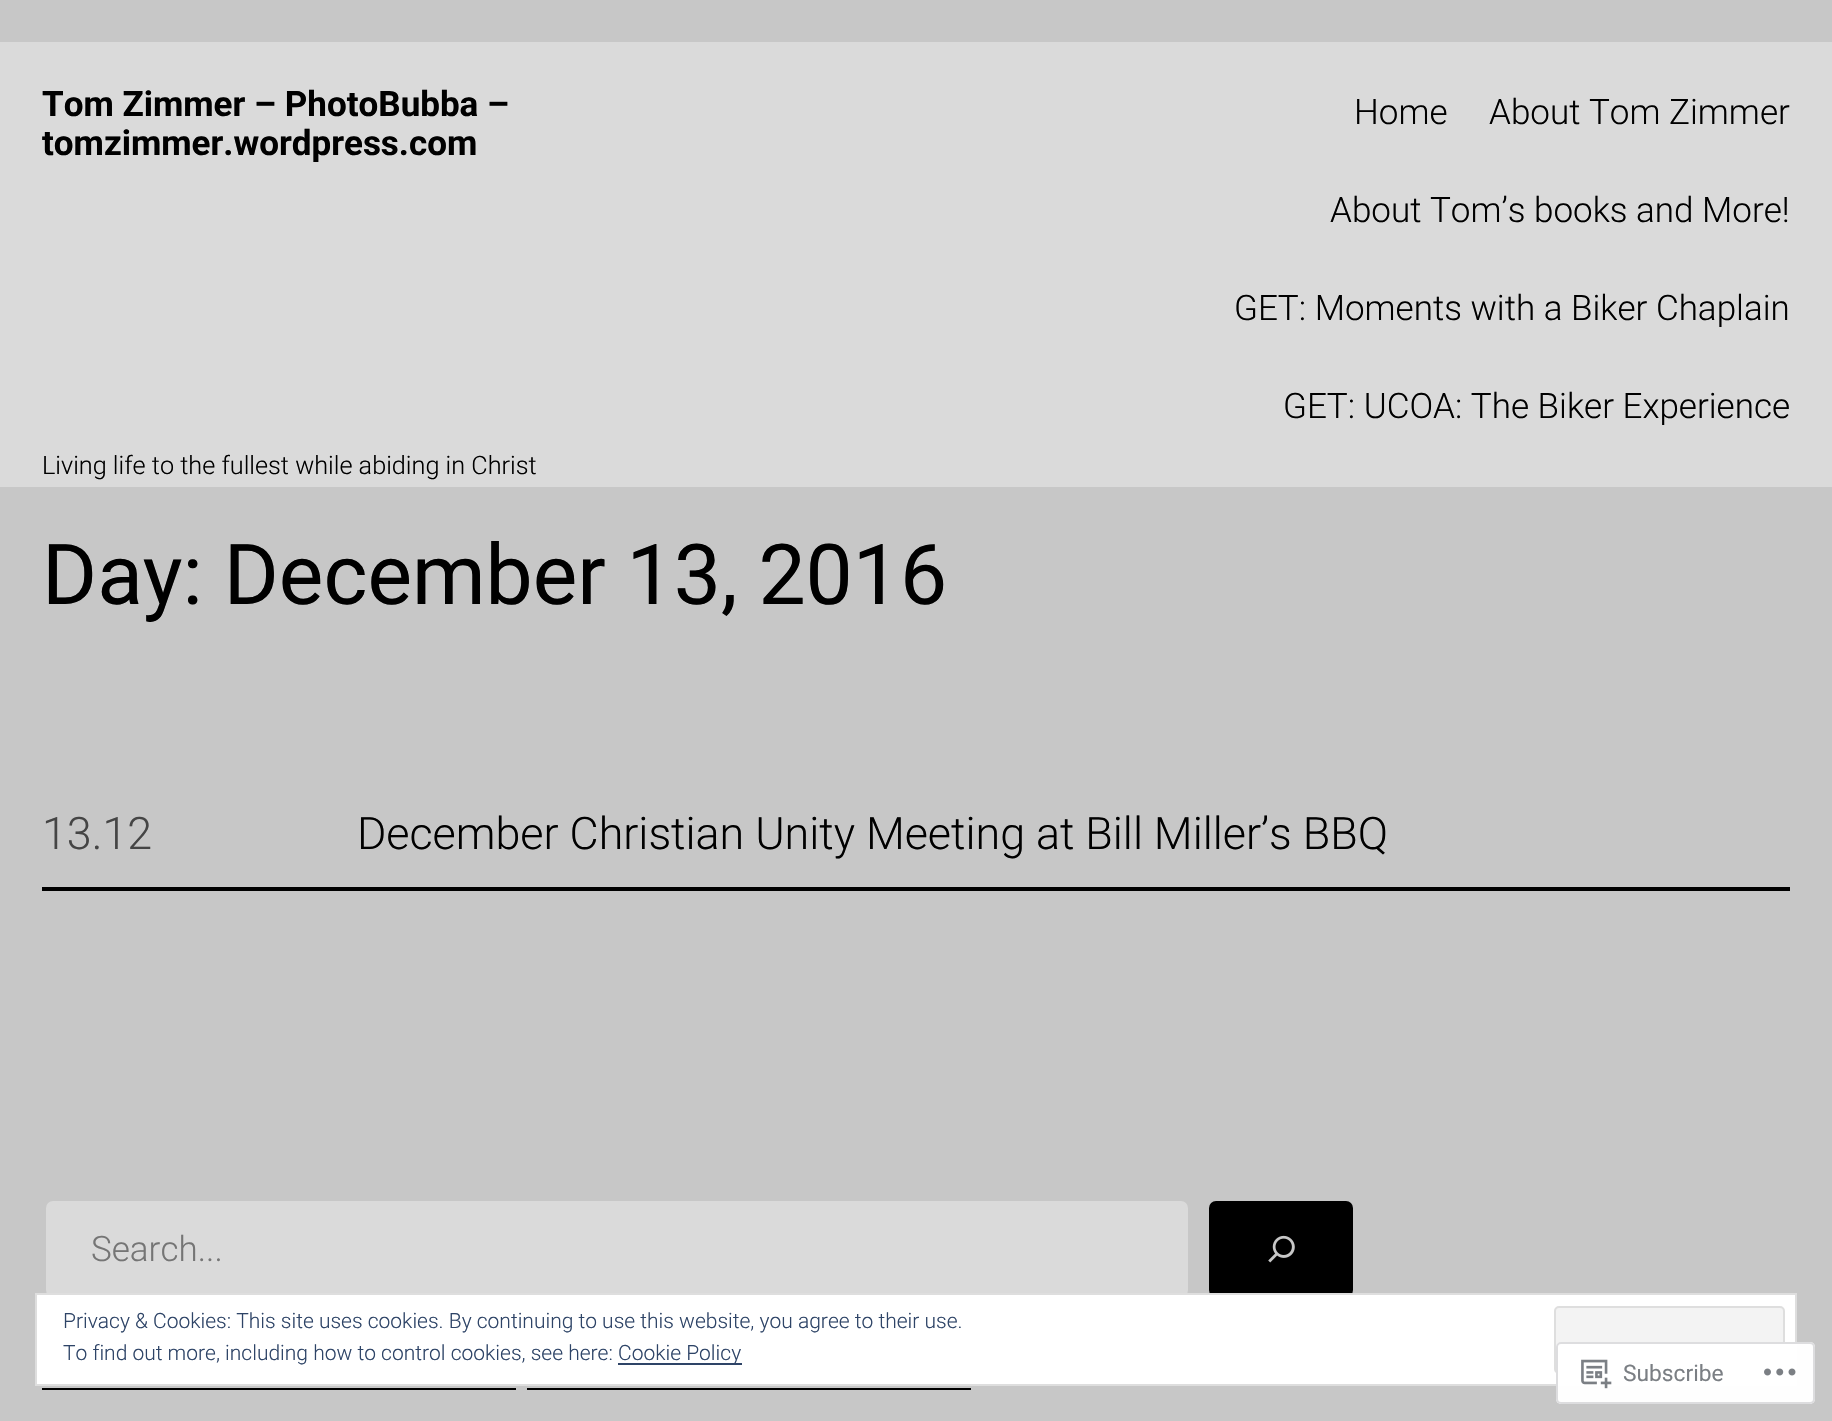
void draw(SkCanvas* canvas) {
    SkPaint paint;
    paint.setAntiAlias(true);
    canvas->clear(0xFFC7C7C7);
    paint.setColor(0xFFDADADA);
    canvas->drawRect(SkRect::MakeXYWH(0, 42, 1832, 445), paint);
    SkFont font1(fontMgr->matchFamilyStyle("Roboto", SkFontStyle::Bold()), 35);
    font1.setSubpixel(true);
    paint.setColor(0xFF000000);
    canvas->drawString("Tom Zimmer – PhotoBubba –", 42, 116, font1, paint);
    canvas->drawString("tomzimmer.wordpress.com", 42, 155, font1, paint);
    SkFont font2(fontMgr->matchFamilyStyle("Roboto", SkFontStyle(300, SkFontStyle::kNormal_Width, SkFontStyle::kUpright_Slant)), 35);
    font2.setSubpixel(true);
    canvas->drawString("Home", 1354, 124, font2, paint);
    canvas->drawString("About Tom Zimmer", 1489, 124, font2, paint);
    canvas->drawString("About Tom’s books and More!", 1330, 222, font2, paint);
    canvas->drawString("GET: Moments with a Biker Chaplain", 1234, 320, font2, paint);
    canvas->drawString("GET: UCOA: The Biker Experience", 1283, 418, font2, paint);
    SkFont font3(fontMgr->matchFamilyStyle("Roboto", SkFontStyle(300, SkFontStyle::kNormal_Width, SkFontStyle::kUpright_Slant)), 25.25f);
    font3.setSubpixel(true);
    canvas->drawString("Living life to the fullest while abiding in Christ", 42, 474, font3, paint);
    SkFont font4(fontMgr->matchFamilyStyle("Roboto", SkFontStyle::Normal()), 84);
    font4.setSubpixel(true);
    canvas->drawString("Day: December 13, 2016", 42, 604, font4, paint);
    canvas->drawRect(SkRect::MakeXYWH(42, 887, 1748, 4), paint);
    SkFont font5(fontMgr->matchFamilyStyle("Roboto", SkFontStyle(300, SkFontStyle::kNormal_Width, SkFontStyle::kUpright_Slant)), 44.8f);
    font5.setSubpixel(true);
    paint.setColor(0xFF454545);
    canvas->drawString("13.12", 42, 849, font5, paint);
    paint.setColor(0xFF000000);
    canvas->drawString("December Christian Unity Meeting at Bill Miller’s BBQ", 357, 849, font5, paint);
    paint.setColor(0xFFDADADA);
    canvas->drawRoundRect(SkRect::MakeXYWH(46, 1201, 1142, 96), 7, 7, paint);
    paint.setColor(0xFF757575);
    canvas->drawString("Search...", 91, 1261, font2, paint);
    paint.setColor(0xFF000000);
    canvas->drawRoundRect(SkRect::MakeXYWH(1209, 1201, 144, 96), 7, 7, paint);
    canvas->drawImageRect(SkImages::DeferredFromEncodedData(SkData::MakeFromFileName("img1.png")), SkRect::MakeXYWH(1268, 1235, 27, 28), SkSamplingOptions());
    canvas->drawRect(SkRect::MakeXYWH(42, 1388, 474, 2), paint);
    canvas->drawRect(SkRect::MakeXYWH(527, 1388, 444, 2), paint);
    paint.setColor(0xFFFFFFFF);
    canvas->drawRect(SkRect::MakeXYWH(36, 1294, 1760, 91), paint);
    paint.setStyle(SkPaint::kStroke_Style);
    paint.setStrokeWidth(2);
    paint.setColor(0xFFDEDEDE);
    canvas->drawRect(SkRect::MakeXYWH(36, 1294, 1760, 91), paint);
    SkFont font6(fontMgr->matchFamilyStyle("Roboto", SkFontStyle(300, SkFontStyle::kNormal_Width, SkFontStyle::kUpright_Slant)), 21);
    font6.setSubpixel(true);
    paint.setStyle(SkPaint::kFill_Style);
    paint.setColor(0xFF2E4467);
    canvas->drawString("Privacy & Cookies: This site uses cookies. By continuing to use this website, you agree to their use.", 63, 1328, font6, paint);
    paint.setColor(0xFFF3F3F3);
    canvas->drawRoundRect(SkRect::MakeXYWH(1555, 1307, 229, 66), 4, 4, paint);
    paint.setStyle(SkPaint::kStroke_Style);
    paint.setColor(0xFFDEDEDE);
    canvas->drawRoundRect(SkRect::MakeXYWH(1555, 1307, 229, 66), 4, 4, paint);
    paint.setStyle(SkPaint::kFill_Style);
    paint.setColor(0xFF2E4467);
    canvas->drawString("To find out more, including how to control cookies, see here:", 63, 1360, font6, paint);
    canvas->drawRect(SkRect::MakeXYWH(618, 1363, 124, 2), paint);
    canvas->drawString("Cookie Policy", 618, 1360, font6, paint);
    paint.setColor(0xFAFFFFFF);
    canvas->drawRoundRect(SkRect::MakeXYWH(1556, 1342, 259, 62), 5, 5, paint);
    paint.setStyle(SkPaint::kStroke_Style);
    paint.setColor(0xFADCDCDE);
    canvas->drawRoundRect(SkRect::MakeXYWH(1557, 1343, 257, 60), 4, 4, paint);
    canvas->drawImageRect(SkImages::DeferredFromEncodedData(SkData::MakeFromFileName("img2.png")), SkRect::MakeXYWH(1581, 1359, 31, 30), SkSamplingOptions());
    SkFont font7(fontMgr->matchFamilyStyle("Roboto", SkFontStyle::Normal()), 22.75f);
    font7.setSubpixel(true);
    paint.setStyle(SkPaint::kFill_Style);
    paint.setColor(0xFF7B7F84);
    canvas->drawString("Subscribe", 1623, 1381, font7, paint);
    canvas->drawImageRect(SkImages::DeferredFromEncodedData(SkData::MakeFromFileName("img3.png")), SkRect::MakeXYWH(1764, 1368, 32, 8), SkSamplingOptions());
}
